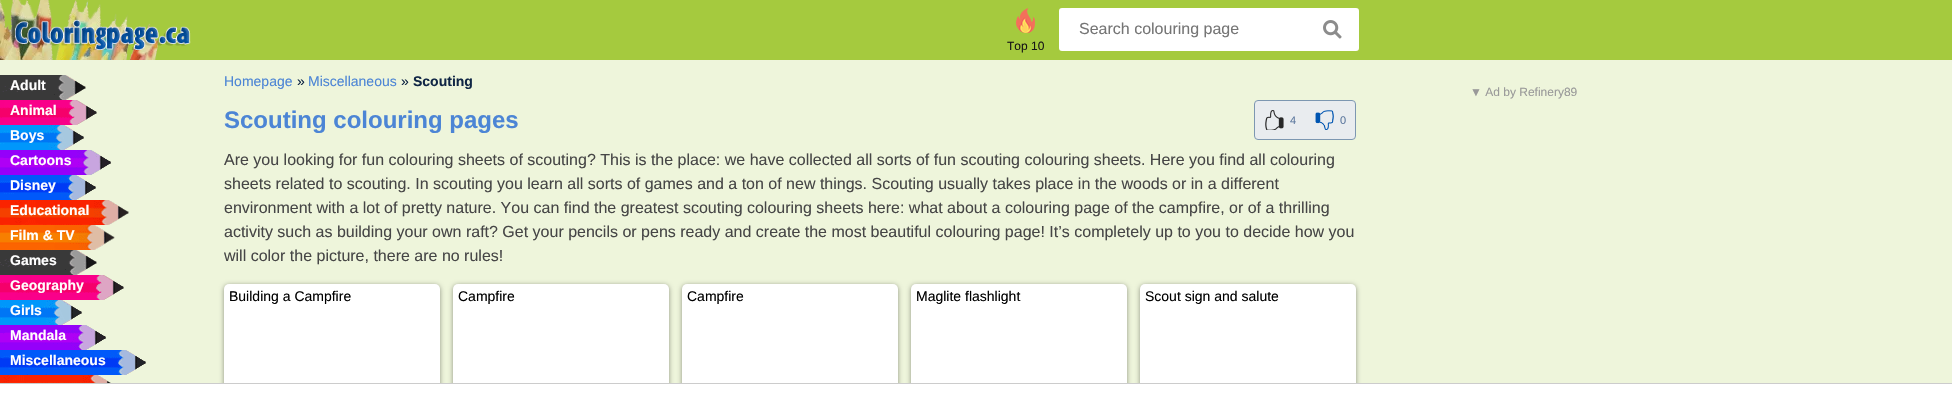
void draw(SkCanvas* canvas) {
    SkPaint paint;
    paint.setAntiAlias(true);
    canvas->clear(0xFFEEF5DB);
    paint.setColor(0xFFA5CA3E);
    canvas->drawRect(SkRect::MakeXYWH(0, 0, 1952, 60), paint);
    canvas->drawImageRect(SkImages::DeferredFromEncodedData(SkData::MakeFromFileName("img1.png")), SkRect::MakeXYWH(0, 0, 159, 60), SkSamplingOptions());
    canvas->drawImageRect(SkImages::DeferredFromEncodedData(SkData::MakeFromFileName("img2.png")), SkRect::MakeXYWH(15, 20, 176, 30), SkSamplingOptions());
    paint.setColor(0xFFFFFFFF);
    canvas->drawRoundRect(SkRect::MakeXYWH(1059, 8, 300, 43), 3, 3, paint);
    SkFont font1(fontMgr->matchFamilyStyle("Liberation Sans", SkFontStyle::Normal()), 16);
    font1.setSubpixel(true);
    paint.setColor(0xFF757575);
    canvas->drawString("Search colouring page", 1079, 34, font1, paint);
    canvas->drawImageRect(SkImages::DeferredFromEncodedData(SkData::MakeFromFileName("img3.png")), SkRect::MakeXYWH(1323, 20, 19, 19), SkSamplingOptions());
    canvas->drawImageRect(SkImages::DeferredFromEncodedData(SkData::MakeFromFileName("img4.png")), SkRect::MakeXYWH(1016, 8, 19, 25), SkSamplingOptions());
    SkFont font2(fontMgr->matchFamilyStyle("Liberation Sans", SkFontStyle::Normal()), 12);
    font2.setSubpixel(true);
    paint.setColor(0xFF171616);
    canvas->drawString("Top 10", 1007, 50, font2, paint);
    canvas->drawImageRect(SkImages::DeferredFromEncodedData(SkData::MakeFromFileName("img5.png")), SkRect::MakeXYWH(0, 75, 86, 25), SkSamplingOptions());
    SkFont font3(fontMgr->matchFamilyStyle("Liberation Sans", SkFontStyle::Bold()), 14);
    font3.setSubpixel(true);
    paint.setColor(0xFFFFFFFF);
    canvas->drawString("Adult", 10, 90, font3, paint);
    canvas->drawImageRect(SkImages::DeferredFromEncodedData(SkData::MakeFromFileName("img6.png")), SkRect::MakeXYWH(0, 100, 97, 25), SkSamplingOptions());
    canvas->drawString("Animal", 10, 115, font3, paint);
    canvas->drawImageRect(SkImages::DeferredFromEncodedData(SkData::MakeFromFileName("img7.png")), SkRect::MakeXYWH(0, 125, 84, 25), SkSamplingOptions());
    canvas->drawString("Boys", 10, 140, font3, paint);
    canvas->drawImageRect(SkImages::DeferredFromEncodedData(SkData::MakeFromFileName("img8.png")), SkRect::MakeXYWH(0, 150, 111, 25), SkSamplingOptions());
    canvas->drawString("Cartoons", 10, 165, font3, paint);
    canvas->drawImageRect(SkImages::DeferredFromEncodedData(SkData::MakeFromFileName("img9.png")), SkRect::MakeXYWH(0, 175, 96, 25), SkSamplingOptions());
    canvas->drawString("Disney", 10, 190, font3, paint);
    canvas->drawImageRect(SkImages::DeferredFromEncodedData(SkData::MakeFromFileName("img10.png")), SkRect::MakeXYWH(0, 200, 129, 25), SkSamplingOptions());
    canvas->drawString("Educational", 10, 215, font3, paint);
    canvas->drawImageRect(SkImages::DeferredFromEncodedData(SkData::MakeFromFileName("img11.png")), SkRect::MakeXYWH(0, 225, 115, 25), SkSamplingOptions());
    canvas->drawString("Film & TV", 10, 240, font3, paint);
    canvas->drawImageRect(SkImages::DeferredFromEncodedData(SkData::MakeFromFileName("img12.png")), SkRect::MakeXYWH(0, 250, 97, 25), SkSamplingOptions());
    canvas->drawString("Games", 10, 265, font3, paint);
    canvas->drawImageRect(SkImages::DeferredFromEncodedData(SkData::MakeFromFileName("img13.png")), SkRect::MakeXYWH(0, 275, 124, 25), SkSamplingOptions());
    canvas->drawString("Geography", 10, 290, font3, paint);
    canvas->drawImageRect(SkImages::DeferredFromEncodedData(SkData::MakeFromFileName("img14.png")), SkRect::MakeXYWH(0, 300, 82, 25), SkSamplingOptions());
    canvas->drawString("Girls", 10, 315, font3, paint);
    canvas->drawImageRect(SkImages::DeferredFromEncodedData(SkData::MakeFromFileName("img15.png")), SkRect::MakeXYWH(0, 325, 106, 25), SkSamplingOptions());
    canvas->drawString("Mandala", 10, 340, font3, paint);
    canvas->drawImageRect(SkImages::DeferredFromEncodedData(SkData::MakeFromFileName("img16.png")), SkRect::MakeXYWH(0, 350, 146, 25), SkSamplingOptions());
    canvas->drawString("Miscellaneous", 10, 365, font3, paint);
    canvas->drawImageRect(SkImages::DeferredFromEncodedData(SkData::MakeFromFileName("img17.png")), SkRect::MakeXYWH(0, 375, 111, 8), SkSamplingOptions());
    SkFont font4(fontMgr->matchFamilyStyle("Liberation Sans", SkFontStyle::Normal()), 14);
    font4.setSubpixel(true);
    paint.setColor(0xFF4C85D5);
    canvas->drawString("Homepage", 224, 86, font4, paint);
    paint.setColor(0xFF102645);
    canvas->drawString("»", 297, 86, font4, paint);
    paint.setColor(0xFF4C85D5);
    canvas->drawString("Miscellaneous", 308, 86, font4, paint);
    paint.setColor(0xFF102645);
    canvas->drawString("»", 401, 86, font4, paint);
    canvas->drawString("Scouting", 413, 86, font3, paint);
    SkFont font5(fontMgr->matchFamilyStyle("Liberation Sans", SkFontStyle::Bold()), 24);
    font5.setSubpixel(true);
    paint.setColor(0xFF4C85D5);
    canvas->drawString("Scouting colouring pages", 224, 128, font5, paint);
    paint.setColor(0xFFE9ECEF);
    canvas->drawRoundRect(SkRect::MakeXYWH(1254.5f, 100.5f, 101, 39), 3.5f, 3.5f, paint);
    paint.setStyle(SkPaint::kStroke_Style);
    paint.setStrokeWidth(1);
    paint.setColor(0xFF7D97B1);
    canvas->drawRoundRect(SkRect::MakeXYWH(1254.5f, 100.5f, 101, 39), 3.5f, 3.5f, paint);
    canvas->drawImageRect(SkImages::DeferredFromEncodedData(SkData::MakeFromFileName("img18.png")), SkRect::MakeXYWH(1265, 110, 19, 20), SkSamplingOptions());
    SkFont font6(fontMgr->matchFamilyStyle("Liberation Sans", SkFontStyle::Normal()), 11);
    font6.setSubpixel(true);
    paint.setStyle(SkPaint::kFill_Style);
    paint.setColor(0xFF5E799F);
    canvas->drawString("4", 1290, 124, font6, paint);
    canvas->drawImageRect(SkImages::DeferredFromEncodedData(SkData::MakeFromFileName("img19.png")), SkRect::MakeXYWH(1315, 110, 19, 20), SkSamplingOptions());
    canvas->drawString("0", 1340, 124, font6, paint);
    paint.setColor(0xFF464646);
    canvas->drawString("Are you looking for fun colouring sheets of scouting? This is the place: we have collected all sorts of fun scouting colouring sheets. Here you find all colouring", 224, 165, font1, paint);
    canvas->drawString("sheets related to scouting. In scouting you learn all sorts of games and a ton of new things. Scouting usually takes place in the woods or in a different", 224, 189, font1, paint);
    canvas->drawString("environment with a lot of pretty nature. You can find the greatest scouting colouring sheets here: what about a colouring page of the campfire, or of a thrilling", 224, 213, font1, paint);
    canvas->drawString("activity such as building your own raft? Get your pencils or pens ready and create the most beautiful colouring page! It’s completely up to you to decide how you", 224, 237, font1, paint);
    canvas->drawString("will color the picture, there are no rules!", 224, 261, font1, paint);
    paint.setColor(0x66000000);
    paint.setMaskFilter(SkMaskFilter::MakeBlur(kNormal_SkBlurStyle, 2.5f));
    canvas->drawRoundRect(SkRect::MakeXYWH(224, 285, 216, 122), 5, 5, paint);
    paint.setMaskFilter(nullptr);
    paint.setColor(0xFFFFFFFF);
    canvas->drawRoundRect(SkRect::MakeXYWH(224, 284, 216, 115), 5, 5, paint);
    paint.setColor(0xFF000000);
    canvas->drawString("Building a Campfire", 229, 301, font4, paint);
    paint.setColor(0x66000000);
    paint.setMaskFilter(SkMaskFilter::MakeBlur(kNormal_SkBlurStyle, 2.5f));
    canvas->drawRoundRect(SkRect::MakeXYWH(453, 285, 216, 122), 5, 5, paint);
    paint.setMaskFilter(nullptr);
    paint.setColor(0xFFFFFFFF);
    canvas->drawRoundRect(SkRect::MakeXYWH(453, 284, 216, 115), 5, 5, paint);
    paint.setColor(0xFF000000);
    canvas->drawString("Campfire", 458, 301, font4, paint);
    paint.setColor(0x66000000);
    paint.setMaskFilter(SkMaskFilter::MakeBlur(kNormal_SkBlurStyle, 2.5f));
    canvas->drawRoundRect(SkRect::MakeXYWH(682, 285, 216, 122), 5, 5, paint);
    paint.setMaskFilter(nullptr);
    paint.setColor(0xFFFFFFFF);
    canvas->drawRoundRect(SkRect::MakeXYWH(682, 284, 216, 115), 5, 5, paint);
    paint.setColor(0xFF000000);
    canvas->drawString("Campfire", 687, 301, font4, paint);
    paint.setColor(0x66000000);
    paint.setMaskFilter(SkMaskFilter::MakeBlur(kNormal_SkBlurStyle, 2.5f));
    canvas->drawRoundRect(SkRect::MakeXYWH(911, 285, 216, 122), 5, 5, paint);
    paint.setMaskFilter(nullptr);
    paint.setColor(0xFFFFFFFF);
    canvas->drawRoundRect(SkRect::MakeXYWH(911, 284, 216, 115), 5, 5, paint);
    paint.setColor(0xFF000000);
    canvas->drawString("Maglite flashlight", 916, 301, font4, paint);
    paint.setColor(0x66000000);
    paint.setMaskFilter(SkMaskFilter::MakeBlur(kNormal_SkBlurStyle, 2.5f));
    canvas->drawRoundRect(SkRect::MakeXYWH(1140, 285, 216, 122), 5, 5, paint);
    paint.setMaskFilter(nullptr);
    paint.setColor(0xFFFFFFFF);
    canvas->drawRoundRect(SkRect::MakeXYWH(1140, 284, 216, 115), 5, 5, paint);
    paint.setColor(0xFF000000);
    canvas->drawString("Scout sign and salute", 1145, 301, font4, paint);
    paint.setColor(0xFF999999);
    canvas->drawString("▼ Ad by Refinery89", 1470, 96, font2, paint);
    paint.setColor(0xFFFFFFFF);
    canvas->drawRect(SkRect::MakeXYWH(0, 384, 1952, 10), paint);
    paint.setColor(0xFFCCCCCC);
    canvas->drawRect(SkRect::MakeXYWH(0, 383, 1952, 1), paint);
}
